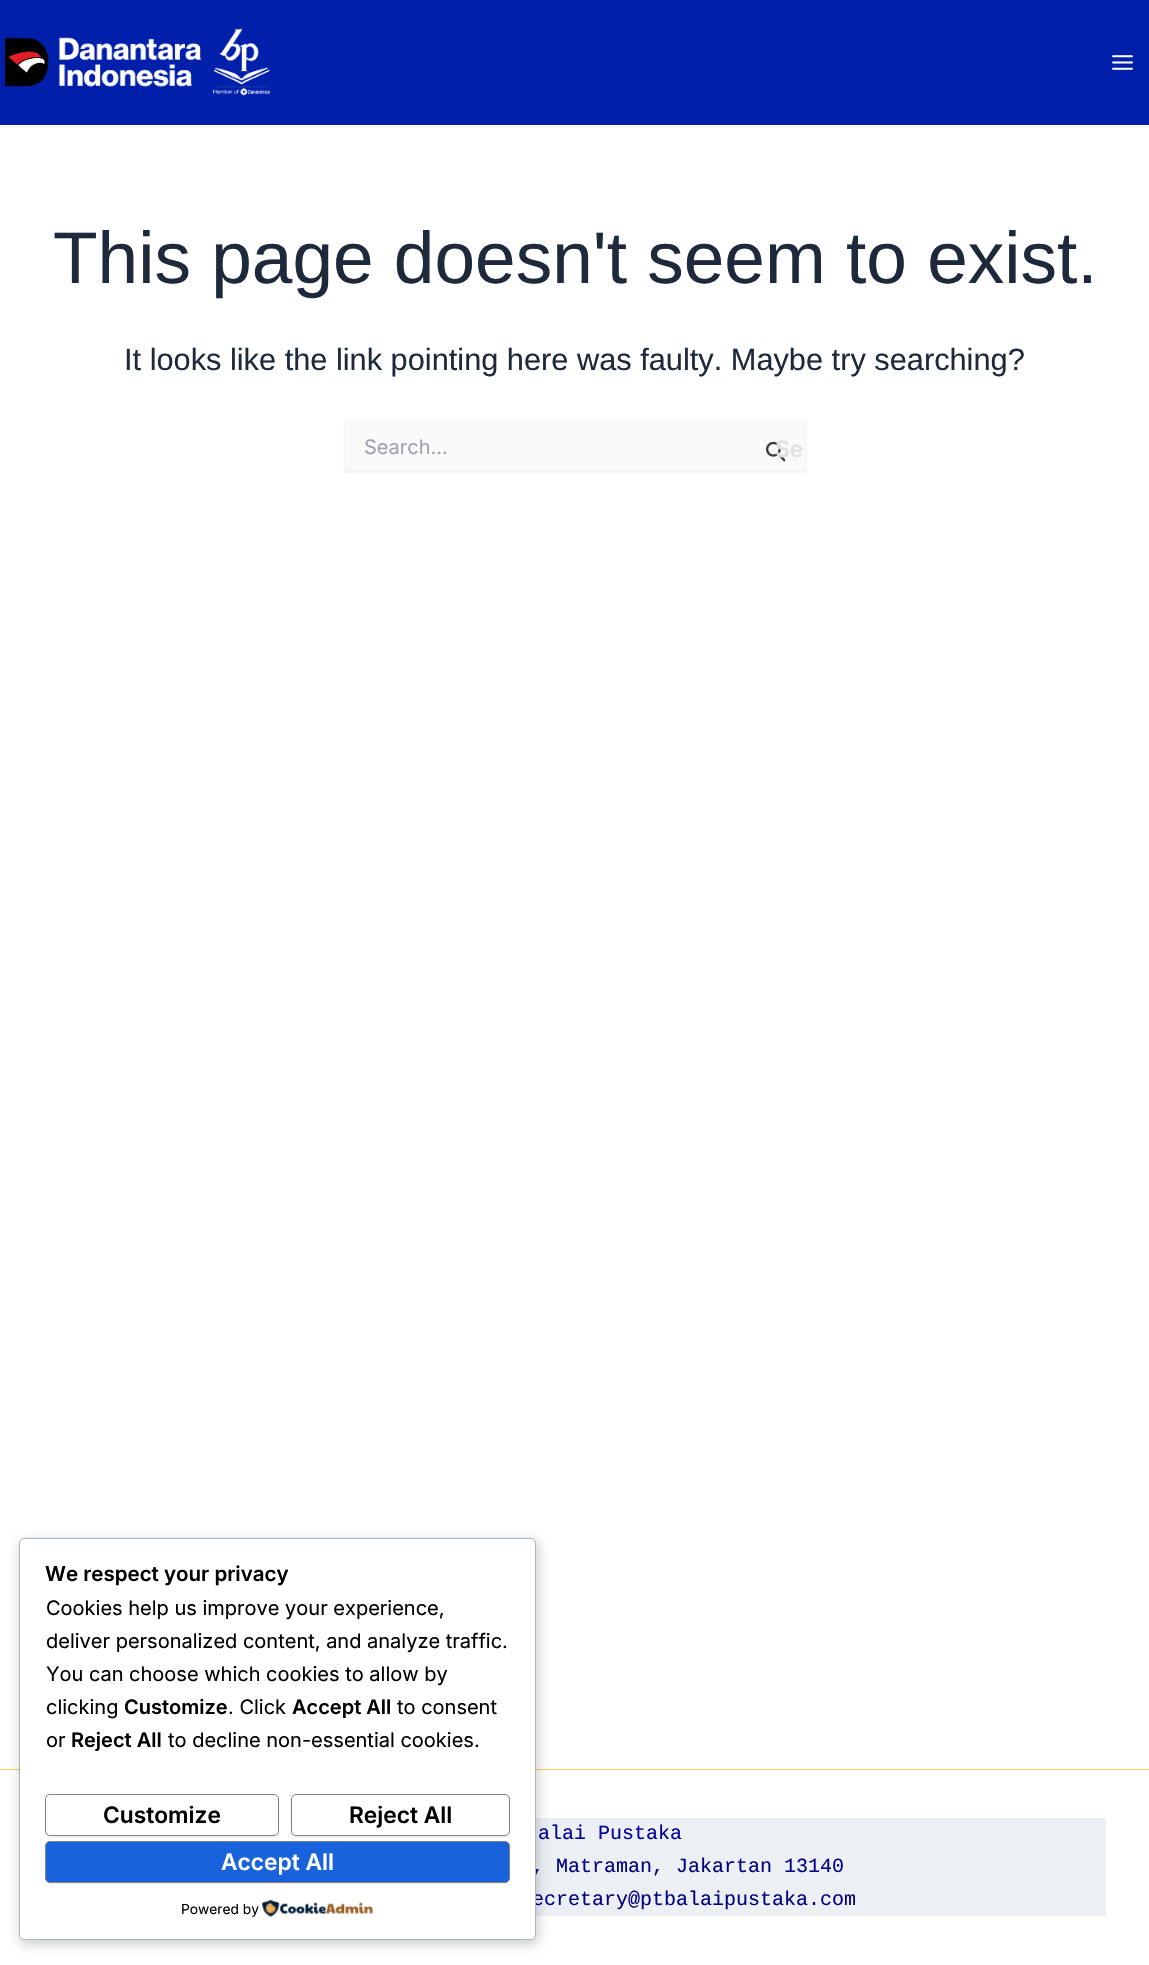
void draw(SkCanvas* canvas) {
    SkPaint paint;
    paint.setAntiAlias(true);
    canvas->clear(0xFFFFFFFF);
    paint.setColor(0xFF001FAB);
    canvas->drawRect(SkRect::MakeXYWH(0, 0, 1149, 125), paint);
    canvas->drawImageRect(SkImages::DeferredFromEncodedData(SkData::MakeFromFileName("img1.png")), SkRect::MakeXYWH(4, 28, 267, 68), SkSamplingOptions());
    canvas->drawImageRect(SkImages::DeferredFromEncodedData(SkData::MakeFromFileName("img2.png")), SkRect::MakeXYWH(1112, 55, 21, 15), SkSamplingOptions());
    SkFont font1(fontMgr->matchFamilyStyle("Liberation Sans", SkFontStyle::Normal()), 73);
    font1.setSubpixel(true);
    paint.setColor(0xFF1E293B);
    canvas->drawString("This page doesn't seem to exist.", 53, 283, font1, paint);
    SkFont font2(fontMgr->matchFamilyStyle("Liberation Sans", SkFontStyle::Normal()), 30.75f);
    font2.setSubpixel(true);
    canvas->drawString("It looks like the link pointing here was faulty. Maybe try searching?", 124, 370, font2, paint);
    paint.setColor(0x0D000000);
    paint.setMaskFilter(SkMaskFilter::MakeBlur(kNormal_SkBlurStyle, 1));
    canvas->drawRoundRect(SkRect::MakeXYWH(344, 423, 462, 50), 2.5f, 2.5f, paint);
    paint.setMaskFilter(nullptr);
    paint.setColor(0xFFFAFAFA);
    canvas->drawRoundRect(SkRect::MakeXYWH(344.5f, 421.5f, 461, 49), 2, 2, paint);
    paint.setStyle(SkPaint::kStroke_Style);
    paint.setStrokeWidth(1);
    paint.setColor(0xFFF2F5F7);
    canvas->drawRoundRect(SkRect::MakeXYWH(344.5f, 421.5f, 461, 49), 2, 2, paint);
    SkFont font3(fontMgr->matchFamilyStyle("Inter", SkFontStyle::Normal()), 20);
    font3.setSubpixel(true);
    paint.setStyle(SkPaint::kFill_Style);
    paint.setColor(0xFF9CA3AF);
    canvas->drawString("Search...", 364, 454, font3, paint);
    canvas->drawImageRect(SkImages::DeferredFromEncodedData(SkData::MakeFromFileName("img3.png")), SkRect::MakeXYWH(766, 441, 19, 21), SkSamplingOptions());
    SkFont font4(fontMgr->matchFamilyStyle("Inter", SkFontStyle(600, SkFontStyle::kNormal_Width, SkFontStyle::kUpright_Slant)), 22.75f);
    font4.setSubpixel(true);
    paint.setColor(0xFFE1E1E2);
    canvas->drawString("Se", 775, 457, font4, paint);
    paint.setColor(0xFFFFCD57);
    canvas->drawRect(SkRect::MakeXYWH(0, 1769, 1149, 1), paint);
    paint.setColor(0xFFECEFF3);
    canvas->drawRect(SkRect::MakeXYWH(536, 1818, 570, 98), paint);
    SkFont font5(fontMgr->matchFamilyStyle("Liberation Mono", SkFontStyle::Normal()), 20);
    font5.setSubpixel(true);
    paint.setColor(0xFF000099);
    canvas->drawString("alai Pustaka", 538, 1839, font5, paint);
    paint.setColor(0xFF000080);
    canvas->drawString(", Matraman, Jakartan 13140", 532, 1872, font5, paint);
    canvas->drawString("ecretary@ptbalaipustaka.com", 532, 1905, font5, paint);
    paint.setColor(0x33000000);
    paint.setMaskFilter(SkMaskFilter::MakeBlur(kNormal_SkBlurStyle, 6));
    canvas->drawRoundRect(SkRect::MakeXYWH(20, 1541, 518, 403), 5, 5, paint);
    paint.setMaskFilter(nullptr);
    paint.setColor(0xFFFFFFFF);
    canvas->drawRoundRect(SkRect::MakeXYWH(19.5f, 1538.5f, 516, 401), 4.5f, 4.5f, paint);
    paint.setStyle(SkPaint::kStroke_Style);
    paint.setColor(0xFFABB8C3);
    canvas->drawRoundRect(SkRect::MakeXYWH(19.5f, 1538.5f, 516, 401), 4.5f, 4.5f, paint);
    SkFont font6(fontMgr->matchFamilyStyle("Inter", SkFontStyle(600, SkFontStyle::kNormal_Width, SkFontStyle::kUpright_Slant)), 20.5f);
    font6.setSubpixel(true);
    paint.setStyle(SkPaint::kFill_Style);
    paint.setColor(0xFF000000);
    canvas->drawString("We respect your privacy", 45, 1581, font6, paint);
    canvas->drawString("Cookies help us improve your experience,", 46, 1615, font3, paint);
    canvas->drawString("deliver personalized content, and analyze traffic.", 46, 1648, font3, paint);
    canvas->drawString("You can choose which cookies to allow by", 46, 1681, font3, paint);
    canvas->drawString("clicking", 46, 1714, font3, paint);
    SkFont font7(fontMgr->matchFamilyStyle("Inter", SkFontStyle(600, SkFontStyle::kNormal_Width, SkFontStyle::kUpright_Slant)), 20);
    font7.setSubpixel(true);
    canvas->drawString("Customize", 124, 1714, font7, paint);
    canvas->drawString(". Click", 228, 1714, font3, paint);
    canvas->drawString("Accept All", 292, 1714, font7, paint);
    canvas->drawString("to consent", 397, 1714, font3, paint);
    canvas->drawString("or", 46, 1747, font3, paint);
    canvas->drawString("Reject All", 71, 1747, font7, paint);
    canvas->drawString("to decline non-essential cookies.", 168, 1747, font3, paint);
    paint.setColor(0x0D000000);
    paint.setMaskFilter(SkMaskFilter::MakeBlur(kNormal_SkBlurStyle, 1));
    canvas->drawRoundRect(SkRect::MakeXYWH(45, 1795, 234, 43), 5, 5, paint);
    paint.setMaskFilter(nullptr);
    paint.setColor(0xFFFFFFFF);
    canvas->drawRoundRect(SkRect::MakeXYWH(45.5f, 1794.5f, 233, 41), 4.5f, 4.5f, paint);
    paint.setStyle(SkPaint::kStroke_Style);
    paint.setColor(0xFF808080);
    canvas->drawRoundRect(SkRect::MakeXYWH(45.5f, 1794.5f, 233, 41), 4.5f, 4.5f, paint);
    paint.setStyle(SkPaint::kFill_Style);
    paint.setColor(0xFF000000);
    canvas->drawString("Customize", 103, 1823, font4, paint);
    paint.setColor(0x0D000000);
    paint.setMaskFilter(SkMaskFilter::MakeBlur(kNormal_SkBlurStyle, 1));
    canvas->drawRoundRect(SkRect::MakeXYWH(291, 1795, 219, 43), 5, 5, paint);
    paint.setMaskFilter(nullptr);
    paint.setColor(0xFFFFFFFF);
    canvas->drawRoundRect(SkRect::MakeXYWH(291.5f, 1794.5f, 218, 41), 4.5f, 4.5f, paint);
    paint.setStyle(SkPaint::kStroke_Style);
    paint.setColor(0xFF808080);
    canvas->drawRoundRect(SkRect::MakeXYWH(291.5f, 1794.5f, 218, 41), 4.5f, 4.5f, paint);
    paint.setStyle(SkPaint::kFill_Style);
    paint.setColor(0xFF000000);
    canvas->drawString("Reject All", 349, 1823, font4, paint);
    paint.setColor(0x0D000000);
    paint.setMaskFilter(SkMaskFilter::MakeBlur(kNormal_SkBlurStyle, 1));
    canvas->drawRoundRect(SkRect::MakeXYWH(45, 1843, 465, 41), 5, 5, paint);
    paint.setMaskFilter(nullptr);
    paint.setColor(0xFF1863DC);
    canvas->drawRoundRect(SkRect::MakeXYWH(45.5f, 1841.5f, 464, 41), 4.5f, 4.5f, paint);
    paint.setStyle(SkPaint::kStroke_Style);
    paint.setColor(0xFF808080);
    canvas->drawRoundRect(SkRect::MakeXYWH(45.5f, 1841.5f, 464, 41), 4.5f, 4.5f, paint);
    paint.setStyle(SkPaint::kFill_Style);
    paint.setColor(0xFFFFFFFF);
    canvas->drawString("Accept All", 221, 1870, font4, paint);
    SkFont font8(fontMgr->matchFamilyStyle("Inter", SkFontStyle::Normal()), 13.75f);
    font8.setSubpixel(true);
    paint.setColor(0xFF000000);
    canvas->drawString("Powered by", 181, 1914, font8, paint);
    canvas->drawImageRect(SkImages::DeferredFromEncodedData(SkData::MakeFromFileName("img4.png")), SkRect::MakeXYWH(262, 1899, 112, 18), SkSamplingOptions());
}
